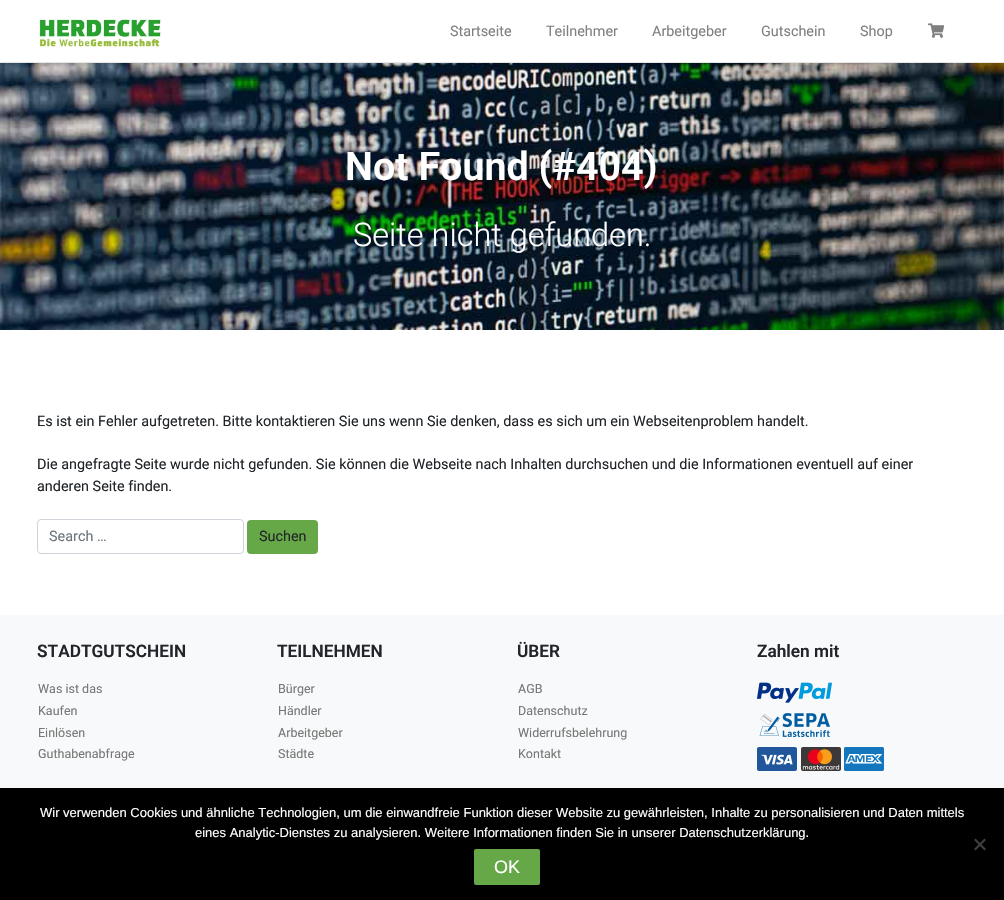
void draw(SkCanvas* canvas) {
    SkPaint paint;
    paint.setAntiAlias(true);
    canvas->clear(0xFFFFFFFF);
    paint.setColor(0xFFE6E6E6);
    canvas->drawRect(SkRect::MakeXYWH(0, 62, 1004, 1), paint);
    canvas->drawImageRect(SkImages::DeferredFromEncodedData(SkData::MakeFromFileName("img1.png")), SkRect::MakeXYWH(38, 17, 124, 31), SkSamplingOptions());
    SkFont font1(fontMgr->matchFamilyStyle("Roboto", SkFontStyle::Normal()), 14.4f);
    font1.setSubpixel(true);
    paint.setColor(0xFF808080);
    canvas->drawString("Startseite", 450, 36, font1, paint);
    canvas->drawString("Teilnehmer", 546, 36, font1, paint);
    canvas->drawString("Arbeitgeber", 652, 36, font1, paint);
    canvas->drawString("Gutschein", 761, 36, font1, paint);
    canvas->drawString("Shop", 860, 36, font1, paint);
    canvas->drawImageRect(SkImages::DeferredFromEncodedData(SkData::MakeFromFileName("img2.png")), SkRect::MakeXYWH(928, 23, 17, 15), SkSamplingOptions());
    canvas->drawImageRect(SkImages::DeferredFromEncodedData(SkData::MakeFromFileName("img3.png")), SkRect::MakeXYWH(0, 63, 1004, 267), SkSamplingOptions());
    SkFont font2(fontMgr->matchFamilyStyle("Roboto", SkFontStyle(600, SkFontStyle::kNormal_Width, SkFontStyle::kUpright_Slant)), 39.5f);
    font2.setSubpixel(true);
    paint.setColor(0xFFFFFFFF);
    canvas->drawString("Not Found (#404)", 345, 180, font2, paint);
    SkFont font3(fontMgr->matchFamilyStyle("Roboto", SkFontStyle(300, SkFontStyle::kNormal_Width, SkFontStyle::kUpright_Slant)), 32.5f);
    font3.setSubpixel(true);
    canvas->drawString("Seite nicht gefunden.", 353, 246, font3, paint);
    paint.setColor(0xFF212529);
    canvas->drawString("Es ist ein Fehler aufgetreten. Bitte kontaktieren Sie uns wenn Sie denken, dass es sich um ein Webseitenproblem handelt.", 37, 426, font1, paint);
    canvas->drawString("Die angefragte Seite wurde nicht gefunden. Sie können die Webseite nach Inhalten durchsuchen und die Informationen eventuell auf einer", 37, 469, font1, paint);
    canvas->drawString("anderen Seite finden.", 37, 491, font1, paint);
    paint.setStyle(SkPaint::kStroke_Style);
    paint.setStrokeWidth(1);
    paint.setColor(0xFFCED4DA);
    canvas->drawRoundRect(SkRect::MakeXYWH(37.5f, 519.5f, 206, 34), 3.5f, 3.5f, paint);
    paint.setStyle(SkPaint::kFill_Style);
    paint.setColor(0xFF6C757D);
    canvas->drawString("Search …", 49, 541, font1, paint);
    paint.setColor(0xFF66A848);
    canvas->drawRoundRect(SkRect::MakeXYWH(247, 520, 71, 34), 4, 4, paint);
    paint.setColor(0xFF212529);
    canvas->drawString("Suchen", 259, 541, font1, paint);
    paint.setColor(0xFFF8F9FA);
    canvas->drawRect(SkRect::MakeXYWH(0, 615, 1004, 173), paint);
    SkFont font4(fontMgr->matchFamilyStyle("Roboto", SkFontStyle(600, SkFontStyle::kNormal_Width, SkFontStyle::kUpright_Slant)), 17.25f);
    font4.setSubpixel(true);
    paint.setColor(0xFF212529);
    canvas->drawString("STADTGUTSCHEIN", 37, 657, font4, paint);
    SkFont font5(fontMgr->matchFamilyStyle("Roboto", SkFontStyle::Normal()), 12.5f);
    font5.setSubpixel(true);
    paint.setColor(0xFF777777);
    canvas->drawString("Was ist das", 38, 693, font5, paint);
    canvas->drawString("Kaufen", 38, 715, font5, paint);
    canvas->drawString("Einlösen", 38, 737, font5, paint);
    canvas->drawString("Guthabenabfrage", 38, 758, font5, paint);
    paint.setColor(0xFF212529);
    canvas->drawString("TEILNEHMEN", 277, 657, font4, paint);
    paint.setColor(0xFF777777);
    canvas->drawString("Bürger", 278, 693, font5, paint);
    canvas->drawString("Händler", 278, 715, font5, paint);
    canvas->drawString("Arbeitgeber", 278, 737, font5, paint);
    canvas->drawString("Städte", 278, 758, font5, paint);
    paint.setColor(0xFF212529);
    canvas->drawString("ÜBER", 517, 657, font4, paint);
    paint.setColor(0xFF777777);
    canvas->drawString("AGB", 518, 693, font5, paint);
    canvas->drawString("Datenschutz", 518, 715, font5, paint);
    canvas->drawString("Widerrufsbelehrung", 518, 737, font5, paint);
    canvas->drawString("Kontakt", 518, 758, font5, paint);
    paint.setColor(0xFF212529);
    canvas->drawString("Zahlen mit", 757, 657, font4, paint);
    canvas->drawImageRect(SkImages::DeferredFromEncodedData(SkData::MakeFromFileName("img4.png")), SkRect::MakeXYWH(757, 682, 75, 21), SkSamplingOptions());
    canvas->drawImageRect(SkImages::DeferredFromEncodedData(SkData::MakeFromFileName("img5.png")), SkRect::MakeXYWH(759, 713, 71, 24), SkSamplingOptions());
    canvas->drawImageRect(SkImages::DeferredFromEncodedData(SkData::MakeFromFileName("img6.png")), SkRect::MakeXYWH(757, 747, 40, 24), SkSamplingOptions());
    canvas->drawImageRect(SkImages::DeferredFromEncodedData(SkData::MakeFromFileName("img7.png")), SkRect::MakeXYWH(801, 747, 40, 24), SkSamplingOptions());
    canvas->drawImageRect(SkImages::DeferredFromEncodedData(SkData::MakeFromFileName("img8.png")), SkRect::MakeXYWH(844, 747, 40, 24), SkSamplingOptions());
    paint.setColor(0xFF000000);
    canvas->drawRect(SkRect::MakeXYWH(0, 788, 1004, 112), paint);
    SkFont font6(fontMgr->matchFamilyStyle("Liberation Sans", SkFontStyle::Normal()), 13);
    font6.setSubpixel(true);
    paint.setColor(0xFFFFFFFF);
    canvas->drawString("Wir verwenden Cookies und ähnliche Technologien, um die einwandfreie Funktion dieser Website zu gewährleisten, Inhalte zu personalisieren und Daten mittels", 40, 817, font6, paint);
    canvas->drawString("eines Analytic-Dienstes zu analysieren. Weitere Informationen finden Sie in unserer Datenschutzerklärung.", 195, 837, font6, paint);
    paint.setColor(0xFF404040);
    canvas->drawPath(SkPathBuilder().moveTo(984.5f, 838.5f).lineTo(986, 840).lineTo(975.5f, 850.5f).lineTo(974, 849).close().detach(), paint);
    canvas->drawPath(SkPathBuilder().moveTo(974, 840).lineTo(975.5f, 838.5f).lineTo(986, 849).lineTo(984.5f, 850.5f).close().detach(), paint);
    paint.setColor(0xFF66A848);
    canvas->drawRoundRect(SkRect::MakeXYWH(474, 849, 66, 36), 2, 2, paint);
    SkFont font7(fontMgr->matchFamilyStyle("Liberation Sans", SkFontStyle::Normal()), 18);
    font7.setSubpixel(true);
    paint.setColor(0xFFFFFFFF);
    canvas->drawString("OK", 494, 873, font7, paint);
}
